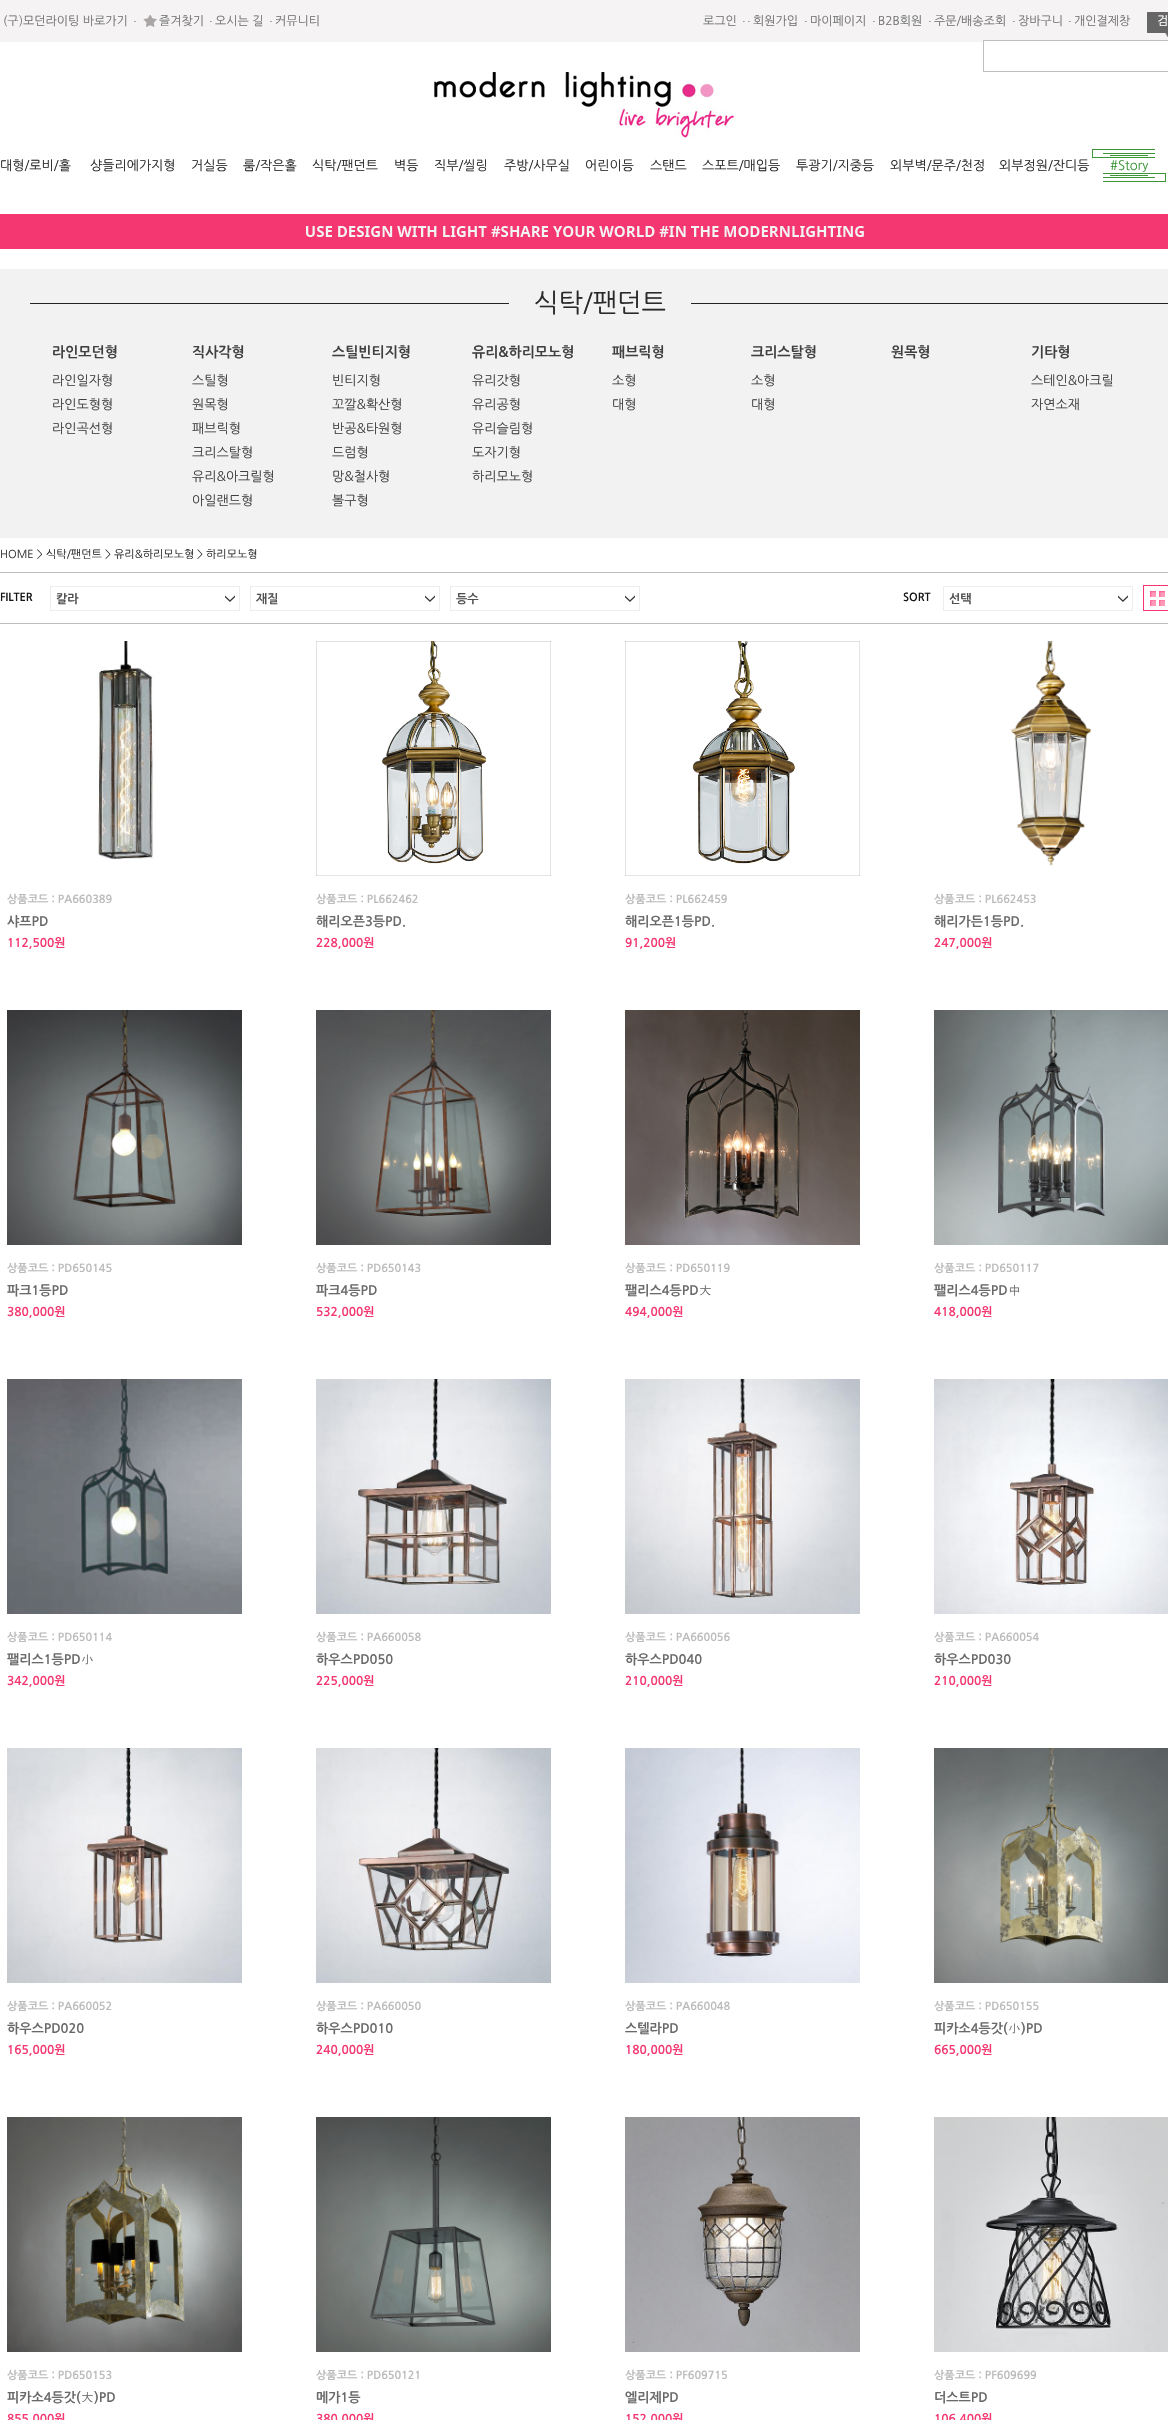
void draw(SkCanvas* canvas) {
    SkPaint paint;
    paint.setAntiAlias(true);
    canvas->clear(0xFFFFFFFF);
    paint.setColor(0xFFF5F3F3);
    canvas->drawRect(SkRect::MakeXYWH(0, 0, 1168, 42), paint);
    SkFont font1(fontMgr->matchFamilyStyle("NanumGothic", SkFontStyle::Normal()), 12);
    font1.setSubpixel(true);
    paint.setColor(0xFF727272);
    canvas->drawString("(구)모던라이팅 바로가기", 3, 25, font1, paint);
    canvas->drawImageRect(SkImages::DeferredFromEncodedData(SkData::MakeFromFileName("img1.png")), SkRect::MakeXYWH(134, 21, 2, 1), SkSamplingOptions());
    canvas->drawImageRect(SkImages::DeferredFromEncodedData(SkData::MakeFromFileName("img2.png")), SkRect::MakeXYWH(143, 15, 14, 12), SkSamplingOptions());
    canvas->drawString("즐겨찾기", 159, 25, font1, paint);
    canvas->drawImageRect(SkImages::DeferredFromEncodedData(SkData::MakeFromFileName("img1.png")), SkRect::MakeXYWH(210, 21, 2, 1), SkSamplingOptions());
    canvas->drawString("오시는 길", 215, 25, font1, paint);
    canvas->drawImageRect(SkImages::DeferredFromEncodedData(SkData::MakeFromFileName("img1.png")), SkRect::MakeXYWH(270, 21, 2, 1), SkSamplingOptions());
    canvas->drawString("커뮤니티", 275, 25, font1, paint);
    canvas->drawString("로그인", 703, 25, font1, paint);
    canvas->drawString("회원가입", 753, 25, font1, paint);
    canvas->drawString("마이페이지", 810, 25, font1, paint);
    canvas->drawString("B2B회원", 878, 25, font1, paint);
    canvas->drawString("주문/배송조회", 934, 25, font1, paint);
    canvas->drawString("장바구니", 1018, 25, font1, paint);
    canvas->drawString("개인결제창", 1074, 25, font1, paint);
    canvas->drawImageRect(SkImages::DeferredFromEncodedData(SkData::MakeFromFileName("img3.png")), SkRect::MakeXYWH(1147, 12, 21, 25), SkSamplingOptions());
    canvas->drawImageRect(SkImages::DeferredFromEncodedData(SkData::MakeFromFileName("img1.png")), SkRect::MakeXYWH(743, 21, 2, 1), SkSamplingOptions());
    canvas->drawImageRect(SkImages::DeferredFromEncodedData(SkData::MakeFromFileName("img1.png")), SkRect::MakeXYWH(748, 21, 2, 1), SkSamplingOptions());
    canvas->drawImageRect(SkImages::DeferredFromEncodedData(SkData::MakeFromFileName("img1.png")), SkRect::MakeXYWH(805, 21, 2, 1), SkSamplingOptions());
    canvas->drawImageRect(SkImages::DeferredFromEncodedData(SkData::MakeFromFileName("img1.png")), SkRect::MakeXYWH(873, 21, 2, 1), SkSamplingOptions());
    canvas->drawImageRect(SkImages::DeferredFromEncodedData(SkData::MakeFromFileName("img1.png")), SkRect::MakeXYWH(929, 21, 2, 1), SkSamplingOptions());
    canvas->drawImageRect(SkImages::DeferredFromEncodedData(SkData::MakeFromFileName("img1.png")), SkRect::MakeXYWH(1013, 21, 2, 1), SkSamplingOptions());
    canvas->drawImageRect(SkImages::DeferredFromEncodedData(SkData::MakeFromFileName("img1.png")), SkRect::MakeXYWH(1069, 21, 2, 1), SkSamplingOptions());
    paint.setColor(0xFFFFFFFF);
    canvas->drawString("검", 1157, 25, font1, paint);
    paint.setStyle(SkPaint::kStroke_Style);
    paint.setStrokeWidth(1);
    paint.setColor(0xFFBFBFBF);
    canvas->drawRect(SkRect::MakeXYWH(983.5f, 40.5f, 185, 31), paint);
    paint.setStyle(SkPaint::kFill_Style);
    paint.setColor(0xFFFFFFFF);
    canvas->drawRect(SkRect::MakeXYWH(984, 41, 184, 1), paint);
    canvas->drawImageRect(SkImages::DeferredFromEncodedData(SkData::MakeFromFileName("img4.png")), SkRect::MakeXYWH(434, 72, 301, 66), SkSamplingOptions());
    SkFont font2(fontMgr->matchFamilyStyle("NanumGothic", SkFontStyle::Normal()), 13);
    font2.setSubpixel(true);
    paint.setColor(0xFF292929);
    canvas->drawString("대형/로비/홀", 0, 170, font2, paint);
    canvas->drawString("샹들리에가지형", 90, 170, font2, paint);
    canvas->drawString("거실등", 191, 170, font2, paint);
    canvas->drawString("룸/작은홀", 243, 170, font2, paint);
    canvas->drawString("식탁/팬던트", 312, 170, font2, paint);
    canvas->drawString("벽등", 394, 170, font2, paint);
    canvas->drawString("직부/씰링", 434, 170, font2, paint);
    canvas->drawString("주방/사무실", 504, 170, font2, paint);
    canvas->drawString("어린이등", 585, 170, font2, paint);
    canvas->drawString("스탠드", 650, 170, font2, paint);
    canvas->drawString("스포트/매입등", 702, 170, font2, paint);
    canvas->drawString("투광기/지중등", 796, 170, font2, paint);
    canvas->drawString("외부벽/문주/천정", 890, 170, font2, paint);
    canvas->drawString("외부정원/잔디등", 999, 170, font2, paint);
    paint.setColor(0xFF3C9536);
    canvas->drawRect(SkRect::MakeXYWH(1092, 149, 63, 1), paint);
    canvas->drawRect(SkRect::MakeXYWH(1092, 157, 63, 1), paint);
    canvas->drawRect(SkRect::MakeXYWH(1092, 149, 1, 9), paint);
    canvas->drawRect(SkRect::MakeXYWH(1110, 155, 38, 1), paint);
    canvas->drawRect(SkRect::MakeXYWH(1110, 175, 38, 1), paint);
    canvas->drawRect(SkRect::MakeXYWH(1103, 173, 63, 1), paint);
    canvas->drawRect(SkRect::MakeXYWH(1165, 173, 1, 9), paint);
    canvas->drawRect(SkRect::MakeXYWH(1103, 181, 63, 1), paint);
    canvas->drawRect(SkRect::MakeXYWH(1103, 153, 52, 1), paint);
    canvas->drawString("#Story", 1110, 170, font2, paint);
    canvas->drawRect(SkRect::MakeXYWH(1103, 177, 52, 1), paint);
    paint.setColor(0xFFF43771);
    canvas->drawRect(SkRect::MakeXYWH(0, 214, 1168, 35), paint);
    canvas->drawImageRect(SkImages::DeferredFromEncodedData(SkData::MakeFromFileName("img5.png")), SkRect::MakeXYWH(306, 226, 558, 11), SkSamplingOptions());
    paint.setColor(0xFFF2F2F2);
    canvas->drawRect(SkRect::MakeXYWH(0, 269, 1168, 269), paint);
    paint.setColor(0xFF222222);
    canvas->drawRect(SkRect::MakeXYWH(30, 303, 1138, 1), paint);
    paint.setColor(0xFFF2F2F2);
    canvas->drawRect(SkRect::MakeXYWH(509, 303, 182, 1), paint);
    SkFont font3(fontMgr->matchFamilyStyle("NanumGothic", SkFontStyle::Normal()), 26);
    font3.setSubpixel(true);
    paint.setColor(0xFF292929);
    canvas->drawString("식탁/팬던트", 534, 312, font3, paint);
    SkFont font4(fontMgr->matchFamilyStyle("NanumGothic", SkFontStyle::Bold()), 14);
    font4.setSubpixel(true);
    paint.setColor(0xFF404040);
    canvas->drawString("라인모던형", 52, 357, font4, paint);
    canvas->drawString("라인일자형", 52, 385, font2, paint);
    canvas->drawString("라인도형형", 52, 409, font2, paint);
    canvas->drawString("라인곡선형", 52, 433, font2, paint);
    canvas->drawString("직사각형", 192, 357, font4, paint);
    canvas->drawString("스틸형", 192, 385, font2, paint);
    canvas->drawString("원목형", 192, 409, font2, paint);
    canvas->drawString("패브릭형", 192, 433, font2, paint);
    canvas->drawString("크리스탈형", 192, 457, font2, paint);
    canvas->drawString("유리&아크릴형", 192, 481, font2, paint);
    canvas->drawString("아일랜드형", 192, 505, font2, paint);
    canvas->drawString("스틸빈티지형", 332, 357, font4, paint);
    canvas->drawString("빈티지형", 332, 385, font2, paint);
    canvas->drawString("꼬깔&확산형", 332, 409, font2, paint);
    canvas->drawString("반공&타원형", 332, 433, font2, paint);
    canvas->drawString("드럼형", 332, 457, font2, paint);
    canvas->drawString("망&철사형", 332, 481, font2, paint);
    canvas->drawString("볼구형", 332, 505, font2, paint);
    canvas->drawString("유리&하리모노형", 472, 357, font4, paint);
    canvas->drawString("유리갓형", 472, 385, font2, paint);
    canvas->drawString("유리공형", 472, 409, font2, paint);
    canvas->drawString("유리슬림형", 472, 433, font2, paint);
    canvas->drawString("도자기형", 472, 457, font2, paint);
    canvas->drawString("하리모노형", 472, 481, font2, paint);
    canvas->drawString("패브릭형", 612, 357, font4, paint);
    canvas->drawString("소형", 612, 385, font2, paint);
    canvas->drawString("대형", 612, 409, font2, paint);
    canvas->drawString("크리스탈형", 751, 357, font4, paint);
    canvas->drawString("소형", 751, 385, font2, paint);
    canvas->drawString("대형", 751, 409, font2, paint);
    canvas->drawString("원목형", 891, 357, font4, paint);
    canvas->drawString("기타형", 1031, 357, font4, paint);
    canvas->drawString("스테인&아크릴", 1031, 385, font2, paint);
    canvas->drawString("자연소재", 1031, 409, font2, paint);
    SkFont font5(fontMgr->matchFamilyStyle("NanumGothic", SkFontStyle::Normal()), 11);
    font5.setSubpixel(true);
    paint.setColor(0xFF303030);
    canvas->drawString("HOME >", 0, 558, font5, paint);
    paint.setColor(0xFF292929);
    canvas->drawString("식탁/팬던트", 46, 558, font5, paint);
    paint.setColor(0xFF303030);
    canvas->drawString(">", 105, 558, font5, paint);
    paint.setColor(0xFF292929);
    canvas->drawString("유리&하리모노형", 114, 558, font5, paint);
    paint.setColor(0xFF303030);
    canvas->drawString(">", 197, 558, font5, paint);
    paint.setColor(0xFF292929);
    canvas->drawString("하리모노형", 206, 558, font5, paint);
    paint.setColor(0xFFBCBCBC);
    canvas->drawRect(SkRect::MakeXYWH(0, 572, 1168, 1), paint);
    canvas->drawRect(SkRect::MakeXYWH(0, 623, 1168, 1), paint);
    SkFont font6(fontMgr->matchFamilyStyle("NanumGothic", SkFontStyle::Bold()), 11);
    font6.setSubpixel(true);
    paint.setColor(0xFF141414);
    canvas->drawString("FILTER", 0, 601, font6, paint);
    canvas->drawImageRect(SkImages::DeferredFromEncodedData(SkData::MakeFromFileName("img6.png")), SkRect::MakeXYWH(225, 595, 10, 7), SkSamplingOptions());
    paint.setStyle(SkPaint::kStroke_Style);
    paint.setColor(0xFFEDEDED);
    canvas->drawRect(SkRect::MakeXYWH(50.5f, 586.5f, 189, 24), paint);
    SkFont font7(fontMgr->matchFamilyStyle("NanumGothic", SkFontStyle::Bold()), 12);
    font7.setSubpixel(true);
    paint.setStyle(SkPaint::kFill_Style);
    paint.setColor(0xFF505050);
    canvas->drawString("칼라", 56, 603, font7, paint);
    canvas->drawImageRect(SkImages::DeferredFromEncodedData(SkData::MakeFromFileName("img6.png")), SkRect::MakeXYWH(425, 595, 10, 7), SkSamplingOptions());
    paint.setStyle(SkPaint::kStroke_Style);
    paint.setColor(0xFFEDEDED);
    canvas->drawRect(SkRect::MakeXYWH(250.5f, 586.5f, 189, 24), paint);
    paint.setStyle(SkPaint::kFill_Style);
    paint.setColor(0xFF505050);
    canvas->drawString("재질", 256, 603, font7, paint);
    canvas->drawImageRect(SkImages::DeferredFromEncodedData(SkData::MakeFromFileName("img6.png")), SkRect::MakeXYWH(625, 595, 10, 7), SkSamplingOptions());
    paint.setStyle(SkPaint::kStroke_Style);
    paint.setColor(0xFFEDEDED);
    canvas->drawRect(SkRect::MakeXYWH(450.5f, 586.5f, 189, 24), paint);
    paint.setStyle(SkPaint::kFill_Style);
    paint.setColor(0xFF505050);
    canvas->drawString("등수", 456, 603, font7, paint);
    paint.setColor(0xFF141414);
    canvas->drawString("SORT", 903, 601, font6, paint);
    canvas->drawImageRect(SkImages::DeferredFromEncodedData(SkData::MakeFromFileName("img6.png")), SkRect::MakeXYWH(1118, 595, 10, 7), SkSamplingOptions());
    paint.setStyle(SkPaint::kStroke_Style);
    paint.setColor(0xFFEDEDED);
    canvas->drawRect(SkRect::MakeXYWH(943.5f, 586.5f, 189, 24), paint);
    paint.setStyle(SkPaint::kFill_Style);
    paint.setColor(0xFF505050);
    canvas->drawString("선택", 949, 603, font7, paint);
    canvas->drawImageRect(SkImages::DeferredFromEncodedData(SkData::MakeFromFileName("img7.png")), SkRect::MakeXYWH(1143, 585, 25, 26), SkSamplingOptions());
    canvas->drawImageRect(SkImages::DeferredFromEncodedData(SkData::MakeFromFileName("img8.png")), SkRect::MakeXYWH(97, 641, 59, 219), SkSamplingOptions());
    paint.setColor(0xFFBBBBBB);
    canvas->drawString("상품코드 : PA660389", 7, 903, font6, paint);
    SkFont font8(fontMgr->matchFamilyStyle("NanumGothic", SkFontStyle::Bold()), 13);
    font8.setSubpixel(true);
    paint.setColor(0xFF696969);
    canvas->drawString("샤프PD", 7, 926, font8, paint);
    paint.setColor(0xFFF43771);
    canvas->drawString("112,500원", 7, 947, font7, paint);
    canvas->drawImageRect(SkImages::DeferredFromEncodedData(SkData::MakeFromFileName("img9.png")), SkRect::MakeXYWH(316, 641, 235, 235), SkSamplingOptions());
    paint.setColor(0xFFBBBBBB);
    canvas->drawString("상품코드 : PL662462", 316, 903, font6, paint);
    paint.setColor(0xFF696969);
    canvas->drawString("해리오픈3등PD.", 316, 926, font8, paint);
    paint.setColor(0xFFF43771);
    canvas->drawString("228,000원", 316, 947, font7, paint);
    canvas->drawImageRect(SkImages::DeferredFromEncodedData(SkData::MakeFromFileName("img10.png")), SkRect::MakeXYWH(625, 641, 235, 235), SkSamplingOptions());
    paint.setColor(0xFFBBBBBB);
    canvas->drawString("상품코드 : PL662459", 625, 903, font6, paint);
    paint.setColor(0xFF696969);
    canvas->drawString("해리오픈1등PD.", 625, 926, font8, paint);
    paint.setColor(0xFFF43771);
    canvas->drawString("91,200원", 625, 947, font7, paint);
    canvas->drawImageRect(SkImages::DeferredFromEncodedData(SkData::MakeFromFileName("img11.png")), SkRect::MakeXYWH(1011, 641, 80, 225), SkSamplingOptions());
    paint.setColor(0xFFBBBBBB);
    canvas->drawString("상품코드 : PL662453", 934, 903, font6, paint);
    paint.setColor(0xFF696969);
    canvas->drawString("해리가든1등PD.", 934, 926, font8, paint);
    paint.setColor(0xFFF43771);
    canvas->drawString("247,000원", 934, 947, font7, paint);
    canvas->drawImageRect(SkImages::DeferredFromEncodedData(SkData::MakeFromFileName("img12.png")), SkRect::MakeXYWH(7, 1010, 235, 235), SkSamplingOptions());
    paint.setColor(0xFFBBBBBB);
    canvas->drawString("상품코드 : PD650145", 7, 1272, font6, paint);
    paint.setColor(0xFF696969);
    canvas->drawString("파크1등PD", 7, 1295, font8, paint);
    paint.setColor(0xFFF43771);
    canvas->drawString("380,000원", 7, 1316, font7, paint);
    canvas->drawImageRect(SkImages::DeferredFromEncodedData(SkData::MakeFromFileName("img13.png")), SkRect::MakeXYWH(316, 1010, 235, 235), SkSamplingOptions());
    paint.setColor(0xFFBBBBBB);
    canvas->drawString("상품코드 : PD650143", 316, 1272, font6, paint);
    paint.setColor(0xFF696969);
    canvas->drawString("파크4등PD", 316, 1295, font8, paint);
    paint.setColor(0xFFF43771);
    canvas->drawString("532,000원", 316, 1316, font7, paint);
    canvas->drawImageRect(SkImages::DeferredFromEncodedData(SkData::MakeFromFileName("img14.png")), SkRect::MakeXYWH(625, 1010, 235, 235), SkSamplingOptions());
    paint.setColor(0xFFBBBBBB);
    canvas->drawString("상품코드 : PD650119", 625, 1272, font6, paint);
    paint.setColor(0xFF696969);
    canvas->drawString("팰리스4등PD", 625, 1295, font8, paint);
    SkFont font9(fontMgr->matchFamilyStyle("Dotum", SkFontStyle::Normal()), 13);
    font9.setSubpixel(true);
    canvas->drawString("大", 699, 1295, font9, paint);
    paint.setColor(0xFFF43771);
    canvas->drawString("494,000원", 625, 1316, font7, paint);
    canvas->drawImageRect(SkImages::DeferredFromEncodedData(SkData::MakeFromFileName("img15.png")), SkRect::MakeXYWH(934, 1010, 234, 235), SkSamplingOptions());
    paint.setColor(0xFFBBBBBB);
    canvas->drawString("상품코드 : PD650117", 934, 1272, font6, paint);
    paint.setColor(0xFF696969);
    canvas->drawString("팰리스4등PD", 934, 1295, font8, paint);
    canvas->drawString("中", 1008, 1295, font9, paint);
    paint.setColor(0xFFF43771);
    canvas->drawString("418,000원", 934, 1316, font7, paint);
    canvas->drawImageRect(SkImages::DeferredFromEncodedData(SkData::MakeFromFileName("img16.png")), SkRect::MakeXYWH(7, 1379, 235, 235), SkSamplingOptions());
    paint.setColor(0xFFBBBBBB);
    canvas->drawString("상품코드 : PD650114", 7, 1641, font6, paint);
    paint.setColor(0xFF696969);
    canvas->drawString("팰리스1등PD", 7, 1664, font8, paint);
    canvas->drawString("小", 81, 1664, font9, paint);
    paint.setColor(0xFFF43771);
    canvas->drawString("342,000원", 7, 1685, font7, paint);
    canvas->drawImageRect(SkImages::DeferredFromEncodedData(SkData::MakeFromFileName("img17.png")), SkRect::MakeXYWH(316, 1379, 235, 235), SkSamplingOptions());
    paint.setColor(0xFFBBBBBB);
    canvas->drawString("상품코드 : PA660058", 316, 1641, font6, paint);
    paint.setColor(0xFF696969);
    canvas->drawString("하우스PD050", 316, 1664, font8, paint);
    paint.setColor(0xFFF43771);
    canvas->drawString("225,000원", 316, 1685, font7, paint);
    canvas->drawImageRect(SkImages::DeferredFromEncodedData(SkData::MakeFromFileName("img18.png")), SkRect::MakeXYWH(625, 1379, 235, 235), SkSamplingOptions());
    paint.setColor(0xFFBBBBBB);
    canvas->drawString("상품코드 : PA660056", 625, 1641, font6, paint);
    paint.setColor(0xFF696969);
    canvas->drawString("하우스PD040", 625, 1664, font8, paint);
    paint.setColor(0xFFF43771);
    canvas->drawString("210,000원", 625, 1685, font7, paint);
    canvas->drawImageRect(SkImages::DeferredFromEncodedData(SkData::MakeFromFileName("img19.png")), SkRect::MakeXYWH(934, 1379, 234, 235), SkSamplingOptions());
    paint.setColor(0xFFBBBBBB);
    canvas->drawString("상품코드 : PA660054", 934, 1641, font6, paint);
    paint.setColor(0xFF696969);
    canvas->drawString("하우스PD030", 934, 1664, font8, paint);
    paint.setColor(0xFFF43771);
    canvas->drawString("210,000원", 934, 1685, font7, paint);
    canvas->drawImageRect(SkImages::DeferredFromEncodedData(SkData::MakeFromFileName("img20.png")), SkRect::MakeXYWH(7, 1748, 235, 235), SkSamplingOptions());
    paint.setColor(0xFFBBBBBB);
    canvas->drawString("상품코드 : PA660052", 7, 2010, font6, paint);
    paint.setColor(0xFF696969);
    canvas->drawString("하우스PD020", 7, 2033, font8, paint);
    paint.setColor(0xFFF43771);
    canvas->drawString("165,000원", 7, 2054, font7, paint);
    canvas->drawImageRect(SkImages::DeferredFromEncodedData(SkData::MakeFromFileName("img21.png")), SkRect::MakeXYWH(316, 1748, 235, 235), SkSamplingOptions());
    paint.setColor(0xFFBBBBBB);
    canvas->drawString("상품코드 : PA660050", 316, 2010, font6, paint);
    paint.setColor(0xFF696969);
    canvas->drawString("하우스PD010", 316, 2033, font8, paint);
    paint.setColor(0xFFF43771);
    canvas->drawString("240,000원", 316, 2054, font7, paint);
    canvas->drawImageRect(SkImages::DeferredFromEncodedData(SkData::MakeFromFileName("img22.png")), SkRect::MakeXYWH(625, 1748, 235, 235), SkSamplingOptions());
    paint.setColor(0xFFBBBBBB);
    canvas->drawString("상품코드 : PA660048", 625, 2010, font6, paint);
    paint.setColor(0xFF696969);
    canvas->drawString("스텔라PD", 625, 2033, font8, paint);
    paint.setColor(0xFFF43771);
    canvas->drawString("180,000원", 625, 2054, font7, paint);
    canvas->drawImageRect(SkImages::DeferredFromEncodedData(SkData::MakeFromFileName("img23.png")), SkRect::MakeXYWH(934, 1748, 234, 235), SkSamplingOptions());
    paint.setColor(0xFFBBBBBB);
    canvas->drawString("상품코드 : PD650155", 934, 2010, font6, paint);
    paint.setColor(0xFF696969);
    canvas->drawString("피카소4등갓(", 934, 2033, font8, paint);
    canvas->drawString("小", 1008, 2033, font9, paint);
    canvas->drawString(")PD", 1021, 2033, font8, paint);
    paint.setColor(0xFFF43771);
    canvas->drawString("665,000원", 934, 2054, font7, paint);
    canvas->drawImageRect(SkImages::DeferredFromEncodedData(SkData::MakeFromFileName("img24.png")), SkRect::MakeXYWH(7, 2117, 235, 235), SkSamplingOptions());
    paint.setColor(0xFFBBBBBB);
    canvas->drawString("상품코드 : PD650153", 7, 2379, font6, paint);
    paint.setColor(0xFF696969);
    canvas->drawString("피카소4등갓(", 7, 2402, font8, paint);
    canvas->drawString("大", 81, 2402, font9, paint);
    canvas->drawString(")PD", 94, 2402, font8, paint);
    paint.setColor(0xFFF43771);
    canvas->drawString("855,000원", 7, 2423, font7, paint);
    canvas->drawImageRect(SkImages::DeferredFromEncodedData(SkData::MakeFromFileName("img25.png")), SkRect::MakeXYWH(316, 2117, 235, 235), SkSamplingOptions());
    paint.setColor(0xFFBBBBBB);
    canvas->drawString("상품코드 : PD650121", 316, 2379, font6, paint);
    paint.setColor(0xFF696969);
    canvas->drawString("메가1등", 316, 2402, font8, paint);
    paint.setColor(0xFFF43771);
    canvas->drawString("380,000원", 316, 2423, font7, paint);
    canvas->drawImageRect(SkImages::DeferredFromEncodedData(SkData::MakeFromFileName("img26.png")), SkRect::MakeXYWH(625, 2117, 235, 235), SkSamplingOptions());
    paint.setColor(0xFFBBBBBB);
    canvas->drawString("상품코드 : PF609715", 625, 2379, font6, paint);
    paint.setColor(0xFF696969);
    canvas->drawString("엘리제PD", 625, 2402, font8, paint);
    paint.setColor(0xFFF43771);
    canvas->drawString("152,000원", 625, 2423, font7, paint);
    canvas->drawImageRect(SkImages::DeferredFromEncodedData(SkData::MakeFromFileName("img27.png")), SkRect::MakeXYWH(934, 2117, 234, 235), SkSamplingOptions());
    paint.setColor(0xFFBBBBBB);
    canvas->drawString("상품코드 : PF609699", 934, 2379, font6, paint);
    paint.setColor(0xFF696969);
    canvas->drawString("더스트PD", 934, 2402, font8, paint);
    paint.setColor(0xFFF43771);
    canvas->drawString("106,400원", 934, 2423, font7, paint);
}
